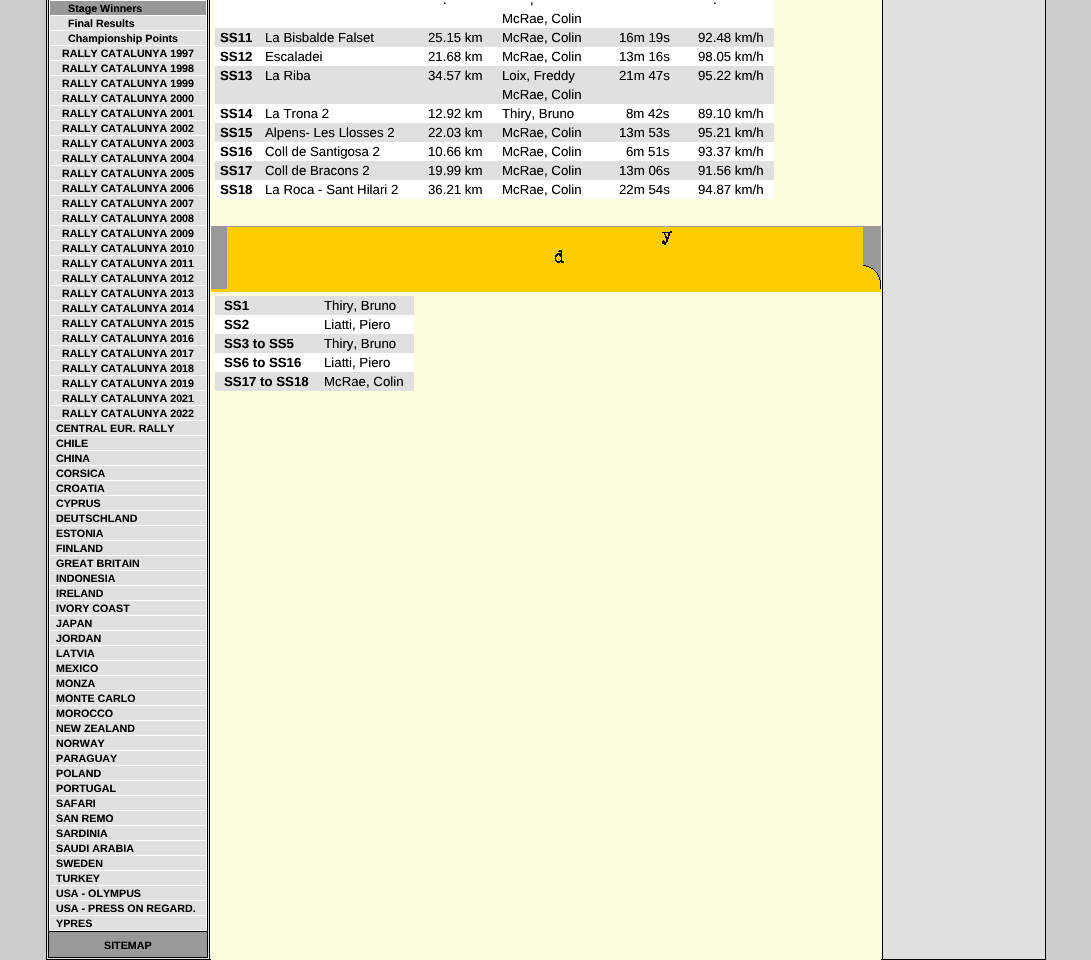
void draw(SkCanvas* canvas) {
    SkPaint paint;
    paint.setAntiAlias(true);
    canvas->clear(0xFFCCCCCC);
    paint.setColor(0xFF000000);
    canvas->drawRect(SkRect::MakeXYWH(46, 0, 1000, 960), paint);
    paint.setColor(0xFFE0E0E0);
    canvas->drawRect(SkRect::MakeXYWH(47, 0, 162, 959), paint);
    paint.setColor(0xFF000000);
    canvas->drawRect(SkRect::MakeXYWH(48, 0, 160, 958), paint);
    paint.setColor(0xFFFFFFFF);
    canvas->drawRect(SkRect::MakeXYWH(49, 0, 158, 931), paint);
    paint.setColor(0xFF999999);
    canvas->drawRect(SkRect::MakeXYWH(50, 1, 156, 14), paint);
    SkFont font1(fontMgr->matchFamilyStyle("Liberation Sans", SkFontStyle::Bold()), 10.7f);
    font1.setSubpixel(true);
    paint.setColor(0xFF000000);
    canvas->drawString("Stage Winners", 68, 12, font1, paint);
    paint.setColor(0xFFE0E0E0);
    canvas->drawRect(SkRect::MakeXYWH(50, 16, 156, 14), paint);
    paint.setColor(0xFF000000);
    canvas->drawString("Final Results", 68, 27, font1, paint);
    paint.setColor(0xFFE0E0E0);
    canvas->drawRect(SkRect::MakeXYWH(50, 31, 156, 14), paint);
    paint.setColor(0xFF000000);
    canvas->drawString("Championship Points", 68, 42, font1, paint);
    paint.setColor(0xFFE0E0E0);
    canvas->drawRect(SkRect::MakeXYWH(50, 46, 156, 14), paint);
    paint.setColor(0xFF000000);
    canvas->drawString("RALLY CATALUNYA 1997", 62, 57, font1, paint);
    paint.setColor(0xFFE0E0E0);
    canvas->drawRect(SkRect::MakeXYWH(50, 61, 156, 14), paint);
    paint.setColor(0xFF000000);
    canvas->drawString("RALLY CATALUNYA 1998", 62, 72, font1, paint);
    paint.setColor(0xFFE0E0E0);
    canvas->drawRect(SkRect::MakeXYWH(50, 76, 156, 14), paint);
    paint.setColor(0xFF000000);
    canvas->drawString("RALLY CATALUNYA 1999", 62, 87, font1, paint);
    paint.setColor(0xFFE0E0E0);
    canvas->drawRect(SkRect::MakeXYWH(50, 91, 156, 14), paint);
    paint.setColor(0xFF000000);
    canvas->drawString("RALLY CATALUNYA 2000", 62, 102, font1, paint);
    paint.setColor(0xFFE0E0E0);
    canvas->drawRect(SkRect::MakeXYWH(50, 106, 156, 14), paint);
    paint.setColor(0xFF000000);
    canvas->drawString("RALLY CATALUNYA 2001", 62, 117, font1, paint);
    paint.setColor(0xFFE0E0E0);
    canvas->drawRect(SkRect::MakeXYWH(50, 121, 156, 14), paint);
    paint.setColor(0xFF000000);
    canvas->drawString("RALLY CATALUNYA 2002", 62, 132, font1, paint);
    paint.setColor(0xFFE0E0E0);
    canvas->drawRect(SkRect::MakeXYWH(50, 136, 156, 14), paint);
    paint.setColor(0xFF000000);
    canvas->drawString("RALLY CATALUNYA 2003", 62, 147, font1, paint);
    paint.setColor(0xFFE0E0E0);
    canvas->drawRect(SkRect::MakeXYWH(50, 151, 156, 14), paint);
    paint.setColor(0xFF000000);
    canvas->drawString("RALLY CATALUNYA 2004", 62, 162, font1, paint);
    paint.setColor(0xFFE0E0E0);
    canvas->drawRect(SkRect::MakeXYWH(50, 166, 156, 14), paint);
    paint.setColor(0xFF000000);
    canvas->drawString("RALLY CATALUNYA 2005", 62, 177, font1, paint);
    paint.setColor(0xFFE0E0E0);
    canvas->drawRect(SkRect::MakeXYWH(50, 181, 156, 14), paint);
    paint.setColor(0xFF000000);
    canvas->drawString("RALLY CATALUNYA 2006", 62, 192, font1, paint);
    paint.setColor(0xFFE0E0E0);
    canvas->drawRect(SkRect::MakeXYWH(50, 196, 156, 14), paint);
    paint.setColor(0xFF000000);
    canvas->drawString("RALLY CATALUNYA 2007", 62, 207, font1, paint);
    paint.setColor(0xFFE0E0E0);
    canvas->drawRect(SkRect::MakeXYWH(50, 211, 156, 14), paint);
    paint.setColor(0xFF000000);
    canvas->drawString("RALLY CATALUNYA 2008", 62, 222, font1, paint);
    paint.setColor(0xFFE0E0E0);
    canvas->drawRect(SkRect::MakeXYWH(50, 226, 156, 14), paint);
    paint.setColor(0xFF000000);
    canvas->drawString("RALLY CATALUNYA 2009", 62, 237, font1, paint);
    paint.setColor(0xFFE0E0E0);
    canvas->drawRect(SkRect::MakeXYWH(50, 241, 156, 14), paint);
    paint.setColor(0xFF000000);
    canvas->drawString("RALLY CATALUNYA 2010", 62, 252, font1, paint);
    paint.setColor(0xFFE0E0E0);
    canvas->drawRect(SkRect::MakeXYWH(50, 256, 156, 14), paint);
    paint.setColor(0xFF000000);
    canvas->drawString("RALLY CATALUNYA 2011", 62, 267, font1, paint);
    paint.setColor(0xFFE0E0E0);
    canvas->drawRect(SkRect::MakeXYWH(50, 271, 156, 14), paint);
    paint.setColor(0xFF000000);
    canvas->drawString("RALLY CATALUNYA 2012", 62, 282, font1, paint);
    paint.setColor(0xFFE0E0E0);
    canvas->drawRect(SkRect::MakeXYWH(50, 286, 156, 14), paint);
    paint.setColor(0xFF000000);
    canvas->drawString("RALLY CATALUNYA 2013", 62, 297, font1, paint);
    paint.setColor(0xFFE0E0E0);
    canvas->drawRect(SkRect::MakeXYWH(50, 301, 156, 14), paint);
    paint.setColor(0xFF000000);
    canvas->drawString("RALLY CATALUNYA 2014", 62, 312, font1, paint);
    paint.setColor(0xFFE0E0E0);
    canvas->drawRect(SkRect::MakeXYWH(50, 316, 156, 14), paint);
    paint.setColor(0xFF000000);
    canvas->drawString("RALLY CATALUNYA 2015", 62, 327, font1, paint);
    paint.setColor(0xFFE0E0E0);
    canvas->drawRect(SkRect::MakeXYWH(50, 331, 156, 14), paint);
    paint.setColor(0xFF000000);
    canvas->drawString("RALLY CATALUNYA 2016", 62, 342, font1, paint);
    paint.setColor(0xFFE0E0E0);
    canvas->drawRect(SkRect::MakeXYWH(50, 346, 156, 14), paint);
    paint.setColor(0xFF000000);
    canvas->drawString("RALLY CATALUNYA 2017", 62, 357, font1, paint);
    paint.setColor(0xFFE0E0E0);
    canvas->drawRect(SkRect::MakeXYWH(50, 361, 156, 14), paint);
    paint.setColor(0xFF000000);
    canvas->drawString("RALLY CATALUNYA 2018", 62, 372, font1, paint);
    paint.setColor(0xFFE0E0E0);
    canvas->drawRect(SkRect::MakeXYWH(50, 376, 156, 14), paint);
    paint.setColor(0xFF000000);
    canvas->drawString("RALLY CATALUNYA 2019", 62, 387, font1, paint);
    paint.setColor(0xFFE0E0E0);
    canvas->drawRect(SkRect::MakeXYWH(50, 391, 156, 14), paint);
    paint.setColor(0xFF000000);
    canvas->drawString("RALLY CATALUNYA 2021", 62, 402, font1, paint);
    paint.setColor(0xFFE0E0E0);
    canvas->drawRect(SkRect::MakeXYWH(50, 406, 156, 14), paint);
    paint.setColor(0xFF000000);
    canvas->drawString("RALLY CATALUNYA 2022", 62, 417, font1, paint);
    paint.setColor(0xFFE0E0E0);
    canvas->drawRect(SkRect::MakeXYWH(50, 421, 156, 14), paint);
    paint.setColor(0xFF000000);
    canvas->drawString("CENTRAL EUR. RALLY", 56, 432, font1, paint);
    paint.setColor(0xFFE0E0E0);
    canvas->drawRect(SkRect::MakeXYWH(50, 436, 156, 14), paint);
    paint.setColor(0xFF000000);
    canvas->drawString("CHILE", 56, 447, font1, paint);
    paint.setColor(0xFFE0E0E0);
    canvas->drawRect(SkRect::MakeXYWH(50, 451, 156, 14), paint);
    paint.setColor(0xFF000000);
    canvas->drawString("CHINA", 56, 462, font1, paint);
    paint.setColor(0xFFE0E0E0);
    canvas->drawRect(SkRect::MakeXYWH(50, 466, 156, 14), paint);
    paint.setColor(0xFF000000);
    canvas->drawString("CORSICA", 56, 477, font1, paint);
    paint.setColor(0xFFE0E0E0);
    canvas->drawRect(SkRect::MakeXYWH(50, 481, 156, 14), paint);
    paint.setColor(0xFF000000);
    canvas->drawString("CROATIA", 56, 492, font1, paint);
    paint.setColor(0xFFE0E0E0);
    canvas->drawRect(SkRect::MakeXYWH(50, 496, 156, 14), paint);
    paint.setColor(0xFF000000);
    canvas->drawString("CYPRUS", 56, 507, font1, paint);
    paint.setColor(0xFFE0E0E0);
    canvas->drawRect(SkRect::MakeXYWH(50, 511, 156, 14), paint);
    paint.setColor(0xFF000000);
    canvas->drawString("DEUTSCHLAND", 56, 522, font1, paint);
    paint.setColor(0xFFE0E0E0);
    canvas->drawRect(SkRect::MakeXYWH(50, 526, 156, 14), paint);
    paint.setColor(0xFF000000);
    canvas->drawString("ESTONIA", 56, 537, font1, paint);
    paint.setColor(0xFFE0E0E0);
    canvas->drawRect(SkRect::MakeXYWH(50, 541, 156, 14), paint);
    paint.setColor(0xFF000000);
    canvas->drawString("FINLAND", 56, 552, font1, paint);
    paint.setColor(0xFFE0E0E0);
    canvas->drawRect(SkRect::MakeXYWH(50, 556, 156, 14), paint);
    paint.setColor(0xFF000000);
    canvas->drawString("GREAT BRITAIN", 56, 567, font1, paint);
    paint.setColor(0xFFE0E0E0);
    canvas->drawRect(SkRect::MakeXYWH(50, 571, 156, 14), paint);
    paint.setColor(0xFF000000);
    canvas->drawString("INDONESIA", 56, 582, font1, paint);
    paint.setColor(0xFFE0E0E0);
    canvas->drawRect(SkRect::MakeXYWH(50, 586, 156, 14), paint);
    paint.setColor(0xFF000000);
    canvas->drawString("IRELAND", 56, 597, font1, paint);
    paint.setColor(0xFFE0E0E0);
    canvas->drawRect(SkRect::MakeXYWH(50, 601, 156, 14), paint);
    paint.setColor(0xFF000000);
    canvas->drawString("IVORY COAST", 56, 612, font1, paint);
    paint.setColor(0xFFE0E0E0);
    canvas->drawRect(SkRect::MakeXYWH(50, 616, 156, 14), paint);
    paint.setColor(0xFF000000);
    canvas->drawString("JAPAN", 56, 627, font1, paint);
    paint.setColor(0xFFE0E0E0);
    canvas->drawRect(SkRect::MakeXYWH(50, 631, 156, 14), paint);
    paint.setColor(0xFF000000);
    canvas->drawString("JORDAN", 56, 642, font1, paint);
    paint.setColor(0xFFE0E0E0);
    canvas->drawRect(SkRect::MakeXYWH(50, 646, 156, 14), paint);
    paint.setColor(0xFF000000);
    canvas->drawString("LATVIA", 56, 657, font1, paint);
    paint.setColor(0xFFE0E0E0);
    canvas->drawRect(SkRect::MakeXYWH(50, 661, 156, 14), paint);
    paint.setColor(0xFF000000);
    canvas->drawString("MEXICO", 56, 672, font1, paint);
    paint.setColor(0xFFE0E0E0);
    canvas->drawRect(SkRect::MakeXYWH(50, 676, 156, 14), paint);
    paint.setColor(0xFF000000);
    canvas->drawString("MONZA", 56, 687, font1, paint);
    paint.setColor(0xFFE0E0E0);
    canvas->drawRect(SkRect::MakeXYWH(50, 691, 156, 14), paint);
    paint.setColor(0xFF000000);
    canvas->drawString("MONTE CARLO", 56, 702, font1, paint);
    paint.setColor(0xFFE0E0E0);
    canvas->drawRect(SkRect::MakeXYWH(50, 706, 156, 14), paint);
    paint.setColor(0xFF000000);
    canvas->drawString("MOROCCO", 56, 717, font1, paint);
    paint.setColor(0xFFE0E0E0);
    canvas->drawRect(SkRect::MakeXYWH(50, 721, 156, 14), paint);
    paint.setColor(0xFF000000);
    canvas->drawString("NEW ZEALAND", 56, 732, font1, paint);
    paint.setColor(0xFFE0E0E0);
    canvas->drawRect(SkRect::MakeXYWH(50, 736, 156, 14), paint);
    paint.setColor(0xFF000000);
    canvas->drawString("NORWAY", 56, 747, font1, paint);
    paint.setColor(0xFFE0E0E0);
    canvas->drawRect(SkRect::MakeXYWH(50, 751, 156, 14), paint);
    paint.setColor(0xFF000000);
    canvas->drawString("PARAGUAY", 56, 762, font1, paint);
    paint.setColor(0xFFE0E0E0);
    canvas->drawRect(SkRect::MakeXYWH(50, 766, 156, 14), paint);
    paint.setColor(0xFF000000);
    canvas->drawString("POLAND", 56, 777, font1, paint);
    paint.setColor(0xFFE0E0E0);
    canvas->drawRect(SkRect::MakeXYWH(50, 781, 156, 14), paint);
    paint.setColor(0xFF000000);
    canvas->drawString("PORTUGAL", 56, 792, font1, paint);
    paint.setColor(0xFFE0E0E0);
    canvas->drawRect(SkRect::MakeXYWH(50, 796, 156, 14), paint);
    paint.setColor(0xFF000000);
    canvas->drawString("SAFARI", 56, 807, font1, paint);
    paint.setColor(0xFFE0E0E0);
    canvas->drawRect(SkRect::MakeXYWH(50, 811, 156, 14), paint);
    paint.setColor(0xFF000000);
    canvas->drawString("SAN REMO", 56, 822, font1, paint);
    paint.setColor(0xFFE0E0E0);
    canvas->drawRect(SkRect::MakeXYWH(50, 826, 156, 14), paint);
    paint.setColor(0xFF000000);
    canvas->drawString("SARDINIA", 56, 837, font1, paint);
    paint.setColor(0xFFE0E0E0);
    canvas->drawRect(SkRect::MakeXYWH(50, 841, 156, 14), paint);
    paint.setColor(0xFF000000);
    canvas->drawString("SAUDI ARABIA", 56, 852, font1, paint);
    paint.setColor(0xFFE0E0E0);
    canvas->drawRect(SkRect::MakeXYWH(50, 856, 156, 14), paint);
    paint.setColor(0xFF000000);
    canvas->drawString("SWEDEN", 56, 867, font1, paint);
    paint.setColor(0xFFE0E0E0);
    canvas->drawRect(SkRect::MakeXYWH(50, 871, 156, 14), paint);
    paint.setColor(0xFF000000);
    canvas->drawString("TURKEY", 56, 882, font1, paint);
    paint.setColor(0xFFE0E0E0);
    canvas->drawRect(SkRect::MakeXYWH(50, 886, 156, 14), paint);
    paint.setColor(0xFF000000);
    canvas->drawString("USA - OLYMPUS", 56, 897, font1, paint);
    paint.setColor(0xFFE0E0E0);
    canvas->drawRect(SkRect::MakeXYWH(50, 901, 156, 14), paint);
    paint.setColor(0xFF000000);
    canvas->drawString("USA - PRESS ON REGARD.", 56, 912, font1, paint);
    paint.setColor(0xFFE0E0E0);
    canvas->drawRect(SkRect::MakeXYWH(50, 916, 156, 14), paint);
    paint.setColor(0xFF000000);
    canvas->drawString("YPRES", 56, 927, font1, paint);
    paint.setColor(0xFF999999);
    canvas->drawRect(SkRect::MakeXYWH(49, 932, 158, 25), paint);
    paint.setColor(0xFF000000);
    canvas->drawString("SITEMAP", 104, 949, font1, paint);
    paint.setColor(0xFFFFFFFF);
    canvas->drawRect(SkRect::MakeXYWH(210, 0, 672, 959), paint);
    paint.setColor(0xFFFFFFE0);
    canvas->drawRect(SkRect::MakeXYWH(211, 0, 670, 226), paint);
    paint.setColor(0xFFFFFFFF);
    canvas->drawRect(SkRect::MakeXYWH(215, 0, 559, 9), paint);
    SkFont font2(fontMgr->matchFamilyStyle("Liberation Sans", SkFontStyle::Normal()), 13.25f);
    font2.setSubpixel(true);
    paint.setColor(0xFF000000);
    canvas->drawString(".", 443, 4, font2, paint);
    canvas->drawString(",", 530, 4, font2, paint);
    canvas->drawString(".", 713, 4, font2, paint);
    paint.setColor(0xFFFFFFFF);
    canvas->drawRect(SkRect::MakeXYWH(215, 9, 559, 19), paint);
    paint.setColor(0xFF000000);
    canvas->drawString("McRae, Colin", 502, 23, font2, paint);
    paint.setColor(0xFFE0E0E0);
    canvas->drawRect(SkRect::MakeXYWH(215, 28, 559, 19), paint);
    SkFont font3(fontMgr->matchFamilyStyle("Liberation Sans", SkFontStyle::Bold()), 13.25f);
    font3.setSubpixel(true);
    paint.setColor(0xFF000000);
    canvas->drawString("SS11", 220, 42, font3, paint);
    canvas->drawString("La Bisbalde Falset", 265, 42, font2, paint);
    canvas->drawString("25.15 km", 428, 42, font2, paint);
    canvas->drawString("McRae, Colin", 502, 42, font2, paint);
    canvas->drawString("16m 19s", 619, 42, font2, paint);
    canvas->drawString("92.48 km/h", 698, 42, font2, paint);
    paint.setColor(0xFFFFFFFF);
    canvas->drawRect(SkRect::MakeXYWH(215, 47, 559, 19), paint);
    paint.setColor(0xFF000000);
    canvas->drawString("SS12", 220, 61, font3, paint);
    canvas->drawString("Escaladei", 265, 61, font2, paint);
    canvas->drawString("21.68 km", 428, 61, font2, paint);
    canvas->drawString("McRae, Colin", 502, 61, font2, paint);
    canvas->drawString("13m 16s", 619, 61, font2, paint);
    canvas->drawString("98.05 km/h", 698, 61, font2, paint);
    paint.setColor(0xFFE0E0E0);
    canvas->drawRect(SkRect::MakeXYWH(215, 66, 559, 19), paint);
    paint.setColor(0xFF000000);
    canvas->drawString("SS13", 220, 80, font3, paint);
    canvas->drawString("La Riba", 265, 80, font2, paint);
    canvas->drawString("34.57 km", 428, 80, font2, paint);
    canvas->drawString("Loix, Freddy", 502, 80, font2, paint);
    canvas->drawString("21m 47s", 619, 80, font2, paint);
    canvas->drawString("95.22 km/h", 698, 80, font2, paint);
    paint.setColor(0xFFE0E0E0);
    canvas->drawRect(SkRect::MakeXYWH(215, 85, 559, 19), paint);
    paint.setColor(0xFF000000);
    canvas->drawString("McRae, Colin", 502, 99, font2, paint);
    paint.setColor(0xFFFFFFFF);
    canvas->drawRect(SkRect::MakeXYWH(215, 104, 559, 19), paint);
    paint.setColor(0xFF000000);
    canvas->drawString("SS14", 220, 118, font3, paint);
    canvas->drawString("La Trona 2", 265, 118, font2, paint);
    canvas->drawString("12.92 km", 428, 118, font2, paint);
    canvas->drawString("Thiry, Bruno", 502, 118, font2, paint);
    canvas->drawString("8m 42s", 626, 118, font2, paint);
    canvas->drawString("89.10 km/h", 698, 118, font2, paint);
    paint.setColor(0xFFE0E0E0);
    canvas->drawRect(SkRect::MakeXYWH(215, 123, 559, 19), paint);
    paint.setColor(0xFF000000);
    canvas->drawString("SS15", 220, 137, font3, paint);
    canvas->drawString("Alpens- Les Llosses 2", 265, 137, font2, paint);
    canvas->drawString("22.03 km", 428, 137, font2, paint);
    canvas->drawString("McRae, Colin", 502, 137, font2, paint);
    canvas->drawString("13m 53s", 619, 137, font2, paint);
    canvas->drawString("95.21 km/h", 698, 137, font2, paint);
    paint.setColor(0xFFFFFFFF);
    canvas->drawRect(SkRect::MakeXYWH(215, 142, 559, 19), paint);
    paint.setColor(0xFF000000);
    canvas->drawString("SS16", 220, 156, font3, paint);
    canvas->drawString("Coll de Santigosa 2", 265, 156, font2, paint);
    canvas->drawString("10.66 km", 428, 156, font2, paint);
    canvas->drawString("McRae, Colin", 502, 156, font2, paint);
    canvas->drawString("6m 51s", 626, 156, font2, paint);
    canvas->drawString("93.37 km/h", 698, 156, font2, paint);
    paint.setColor(0xFFE0E0E0);
    canvas->drawRect(SkRect::MakeXYWH(215, 161, 559, 19), paint);
    paint.setColor(0xFF000000);
    canvas->drawString("SS17", 220, 175, font3, paint);
    canvas->drawString("Coll de Bracons 2", 265, 175, font2, paint);
    canvas->drawString("19.99 km", 428, 175, font2, paint);
    canvas->drawString("McRae, Colin", 502, 175, font2, paint);
    canvas->drawString("13m 06s", 619, 175, font2, paint);
    canvas->drawString("91.56 km/h", 698, 175, font2, paint);
    paint.setColor(0xFFFFFFFF);
    canvas->drawRect(SkRect::MakeXYWH(215, 180, 559, 19), paint);
    paint.setColor(0xFF000000);
    canvas->drawString("SS18", 220, 194, font3, paint);
    canvas->drawString("La Roca - Sant Hilari 2", 265, 194, font2, paint);
    canvas->drawString("36.21 km", 428, 194, font2, paint);
    canvas->drawString("McRae, Colin", 502, 194, font2, paint);
    canvas->drawString("22m 54s", 619, 194, font2, paint);
    canvas->drawString("94.87 km/h", 698, 194, font2, paint);
    paint.setColor(0xFF999999);
    canvas->drawRect(SkRect::MakeXYWH(211, 226, 670, 63), paint);
    paint.setColor(0xFFFFCC00);
    canvas->drawRect(SkRect::MakeXYWH(227, 227, 636, 62), paint);
    canvas->drawImageRect(SkImages::DeferredFromEncodedData(SkData::MakeFromFileName("img1.png")), SkRect::MakeXYWH(662, 231, 10, 14), SkSamplingOptions());
    canvas->drawImageRect(SkImages::DeferredFromEncodedData(SkData::MakeFromFileName("img2.png")), SkRect::MakeXYWH(555, 250, 9, 13), SkSamplingOptions());
    canvas->drawImageRect(SkImages::DeferredFromEncodedData(SkData::MakeFromFileName("img3.png")), SkRect::MakeXYWH(863, 265, 18, 24), SkSamplingOptions());
    canvas->drawRect(SkRect::MakeXYWH(211, 289, 670, 3), paint);
    paint.setColor(0xFFFFFFE0);
    canvas->drawRect(SkRect::MakeXYWH(211, 292, 670, 668), paint);
    paint.setColor(0xFFE0E0E0);
    canvas->drawRect(SkRect::MakeXYWH(215, 296, 199, 19), paint);
    paint.setColor(0xFF000000);
    canvas->drawString("SS1", 224, 310, font3, paint);
    canvas->drawString("Thiry, Bruno", 324, 310, font2, paint);
    paint.setColor(0xFFFFFFFF);
    canvas->drawRect(SkRect::MakeXYWH(215, 315, 199, 19), paint);
    paint.setColor(0xFF000000);
    canvas->drawString("SS2", 224, 329, font3, paint);
    canvas->drawString("Liatti, Piero", 324, 329, font2, paint);
    paint.setColor(0xFFE0E0E0);
    canvas->drawRect(SkRect::MakeXYWH(215, 334, 199, 19), paint);
    paint.setColor(0xFF000000);
    canvas->drawString("SS3 to SS5", 224, 348, font3, paint);
    canvas->drawString("Thiry, Bruno", 324, 348, font2, paint);
    paint.setColor(0xFFFFFFFF);
    canvas->drawRect(SkRect::MakeXYWH(215, 353, 199, 19), paint);
    paint.setColor(0xFF000000);
    canvas->drawString("SS6 to SS16", 224, 367, font3, paint);
    canvas->drawString("Liatti, Piero", 324, 367, font2, paint);
    paint.setColor(0xFFE0E0E0);
    canvas->drawRect(SkRect::MakeXYWH(215, 372, 199, 19), paint);
    paint.setColor(0xFF000000);
    canvas->drawString("SS17 to SS18", 224, 386, font3, paint);
    canvas->drawString("McRae, Colin", 324, 386, font2, paint);
    paint.setColor(0xFFE0E0E0);
    canvas->drawRect(SkRect::MakeXYWH(883, 0, 162, 959), paint);
}
